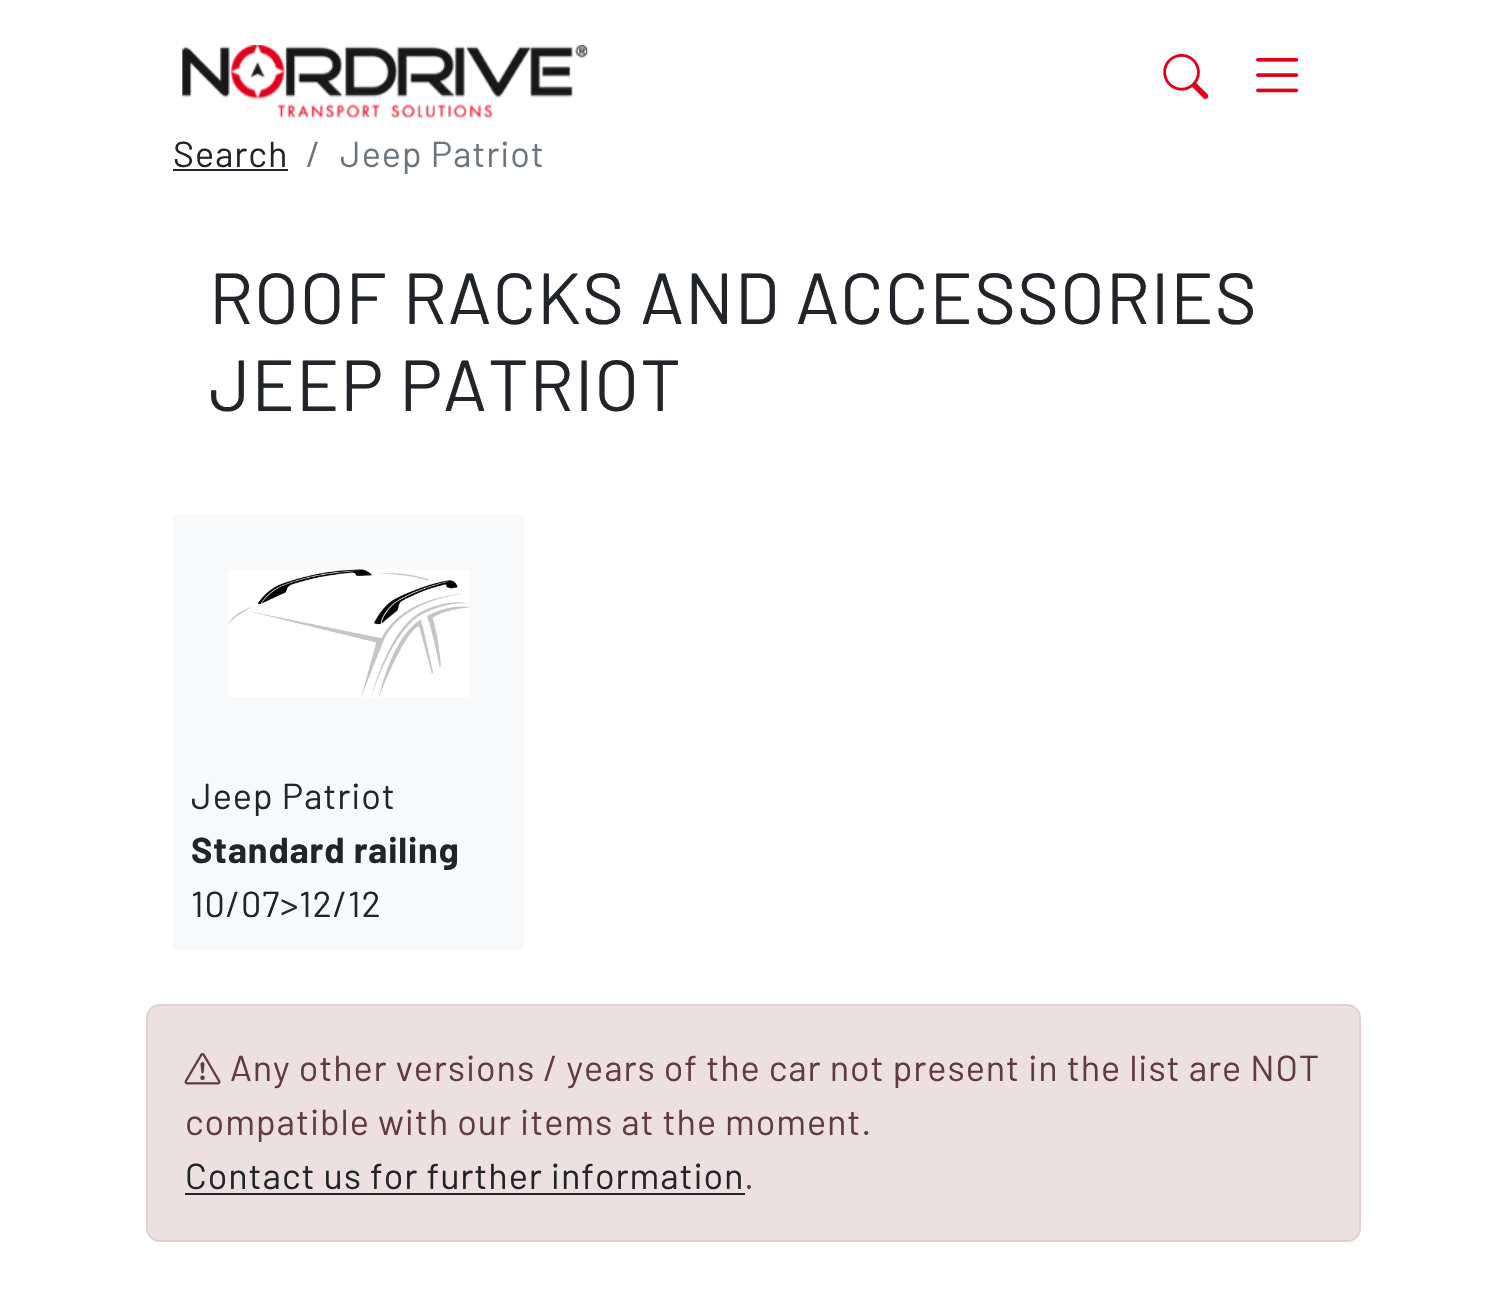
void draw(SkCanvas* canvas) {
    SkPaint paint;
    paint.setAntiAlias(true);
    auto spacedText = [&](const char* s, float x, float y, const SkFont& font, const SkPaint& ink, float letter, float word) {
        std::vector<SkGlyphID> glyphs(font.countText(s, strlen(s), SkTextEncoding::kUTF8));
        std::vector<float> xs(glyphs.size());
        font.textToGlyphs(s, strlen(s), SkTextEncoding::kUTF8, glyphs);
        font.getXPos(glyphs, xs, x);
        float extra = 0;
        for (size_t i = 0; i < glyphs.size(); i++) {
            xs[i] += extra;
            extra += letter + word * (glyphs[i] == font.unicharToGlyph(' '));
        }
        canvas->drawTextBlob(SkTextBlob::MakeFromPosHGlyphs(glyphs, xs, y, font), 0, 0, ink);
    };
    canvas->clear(0xFFFFFFFF);
    canvas->drawImageRect(SkImages::DeferredFromEncodedData(SkData::MakeFromFileName("img1.png")), SkRect::MakeXYWH(182, 45, 406, 73), SkSamplingOptions());
    canvas->drawImageRect(SkImages::DeferredFromEncodedData(SkData::MakeFromFileName("img2.png")), SkRect::MakeXYWH(1163, 54, 46, 45), SkSamplingOptions());
    canvas->drawImageRect(SkImages::DeferredFromEncodedData(SkData::MakeFromFileName("img3.png")), SkRect::MakeXYWH(1256, 57, 43, 36), SkSamplingOptions());
    SkFont font1(fontMgr->matchFamilyStyle("Barlow", SkFontStyle::Normal()), 36);
    font1.setSubpixel(true);
    paint.setColor(0xFF212529);
    spacedText("Search", 173, 167, font1, paint, 0.9f, 0);
    canvas->drawRect(SkRect::MakeXYWH(173, 169, 115, 2), paint);
    paint.setColor(0xFF6C757D);
    spacedText("/", 306, 167, font1, paint, 0.9f, 0);
    spacedText("Jeep Patriot", 340, 167, font1, paint, 0.9f, 0);
    SkFont font2(fontMgr->matchFamilyStyle("Barlow", SkFontStyle::Normal()), 72.1f);
    font2.setSubpixel(true);
    paint.setColor(0xFF212529);
    spacedText("ROOF RACKS AND ACCESSORIES", 209, 324, font2, paint, 0.9f, 0);
    spacedText("JEEP PATRIOT", 209, 411, font2, paint, 0.9f, 0);
    paint.setColor(0xFFF8F9FA);
    canvas->drawRect(SkRect::MakeXYWH(173, 515, 351, 435), paint);
    canvas->drawImageRect(SkImages::DeferredFromEncodedData(SkData::MakeFromFileName("img4.png")), SkRect::MakeXYWH(227, 569, 243, 128), SkSamplingOptions());
    paint.setColor(0xFF212529);
    spacedText("Jeep Patriot", 191, 809, font1, paint, 0.9f, 0);
    SkFont font3(fontMgr->matchFamilyStyle("Barlow", SkFontStyle::Bold()), 36);
    font3.setSubpixel(true);
    spacedText("Standard railing", 191, 863, font3, paint, 0.9f, 0);
    spacedText("10/07>12/12", 191, 917, font1, paint, 0.9f, 0);
    paint.setColor(0xFFECE0E1);
    canvas->drawRoundRect(SkRect::MakeXYWH(147, 1005, 1213, 236), 13, 13, paint);
    paint.setStyle(SkPaint::kStroke_Style);
    paint.setStrokeWidth(2);
    paint.setColor(0xFFE3D1D2);
    canvas->drawRoundRect(SkRect::MakeXYWH(147, 1005, 1213, 236), 13, 13, paint);
    canvas->drawImageRect(SkImages::DeferredFromEncodedData(SkData::MakeFromFileName("img5.png")), SkRect::MakeXYWH(184, 1053, 37, 32), SkSamplingOptions());
    paint.setStyle(SkPaint::kFill_Style);
    paint.setColor(0xFF613C3E);
    spacedText("Any other versions / years of the car not present in the list are NOT", 230, 1081, font1, paint, 0.9f, 0);
    spacedText("compatible with our items at the moment.", 185, 1135, font1, paint, 0.9f, 0);
    paint.setColor(0xFF212529);
    spacedText("Contact us for further information", 185, 1189, font1, paint, 0.9f, 0);
    canvas->drawRect(SkRect::MakeXYWH(185, 1193, 560, 2), paint);
    paint.setColor(0xFF613C3E);
    spacedText(".", 744, 1189, font1, paint, 0.9f, 0);
}
